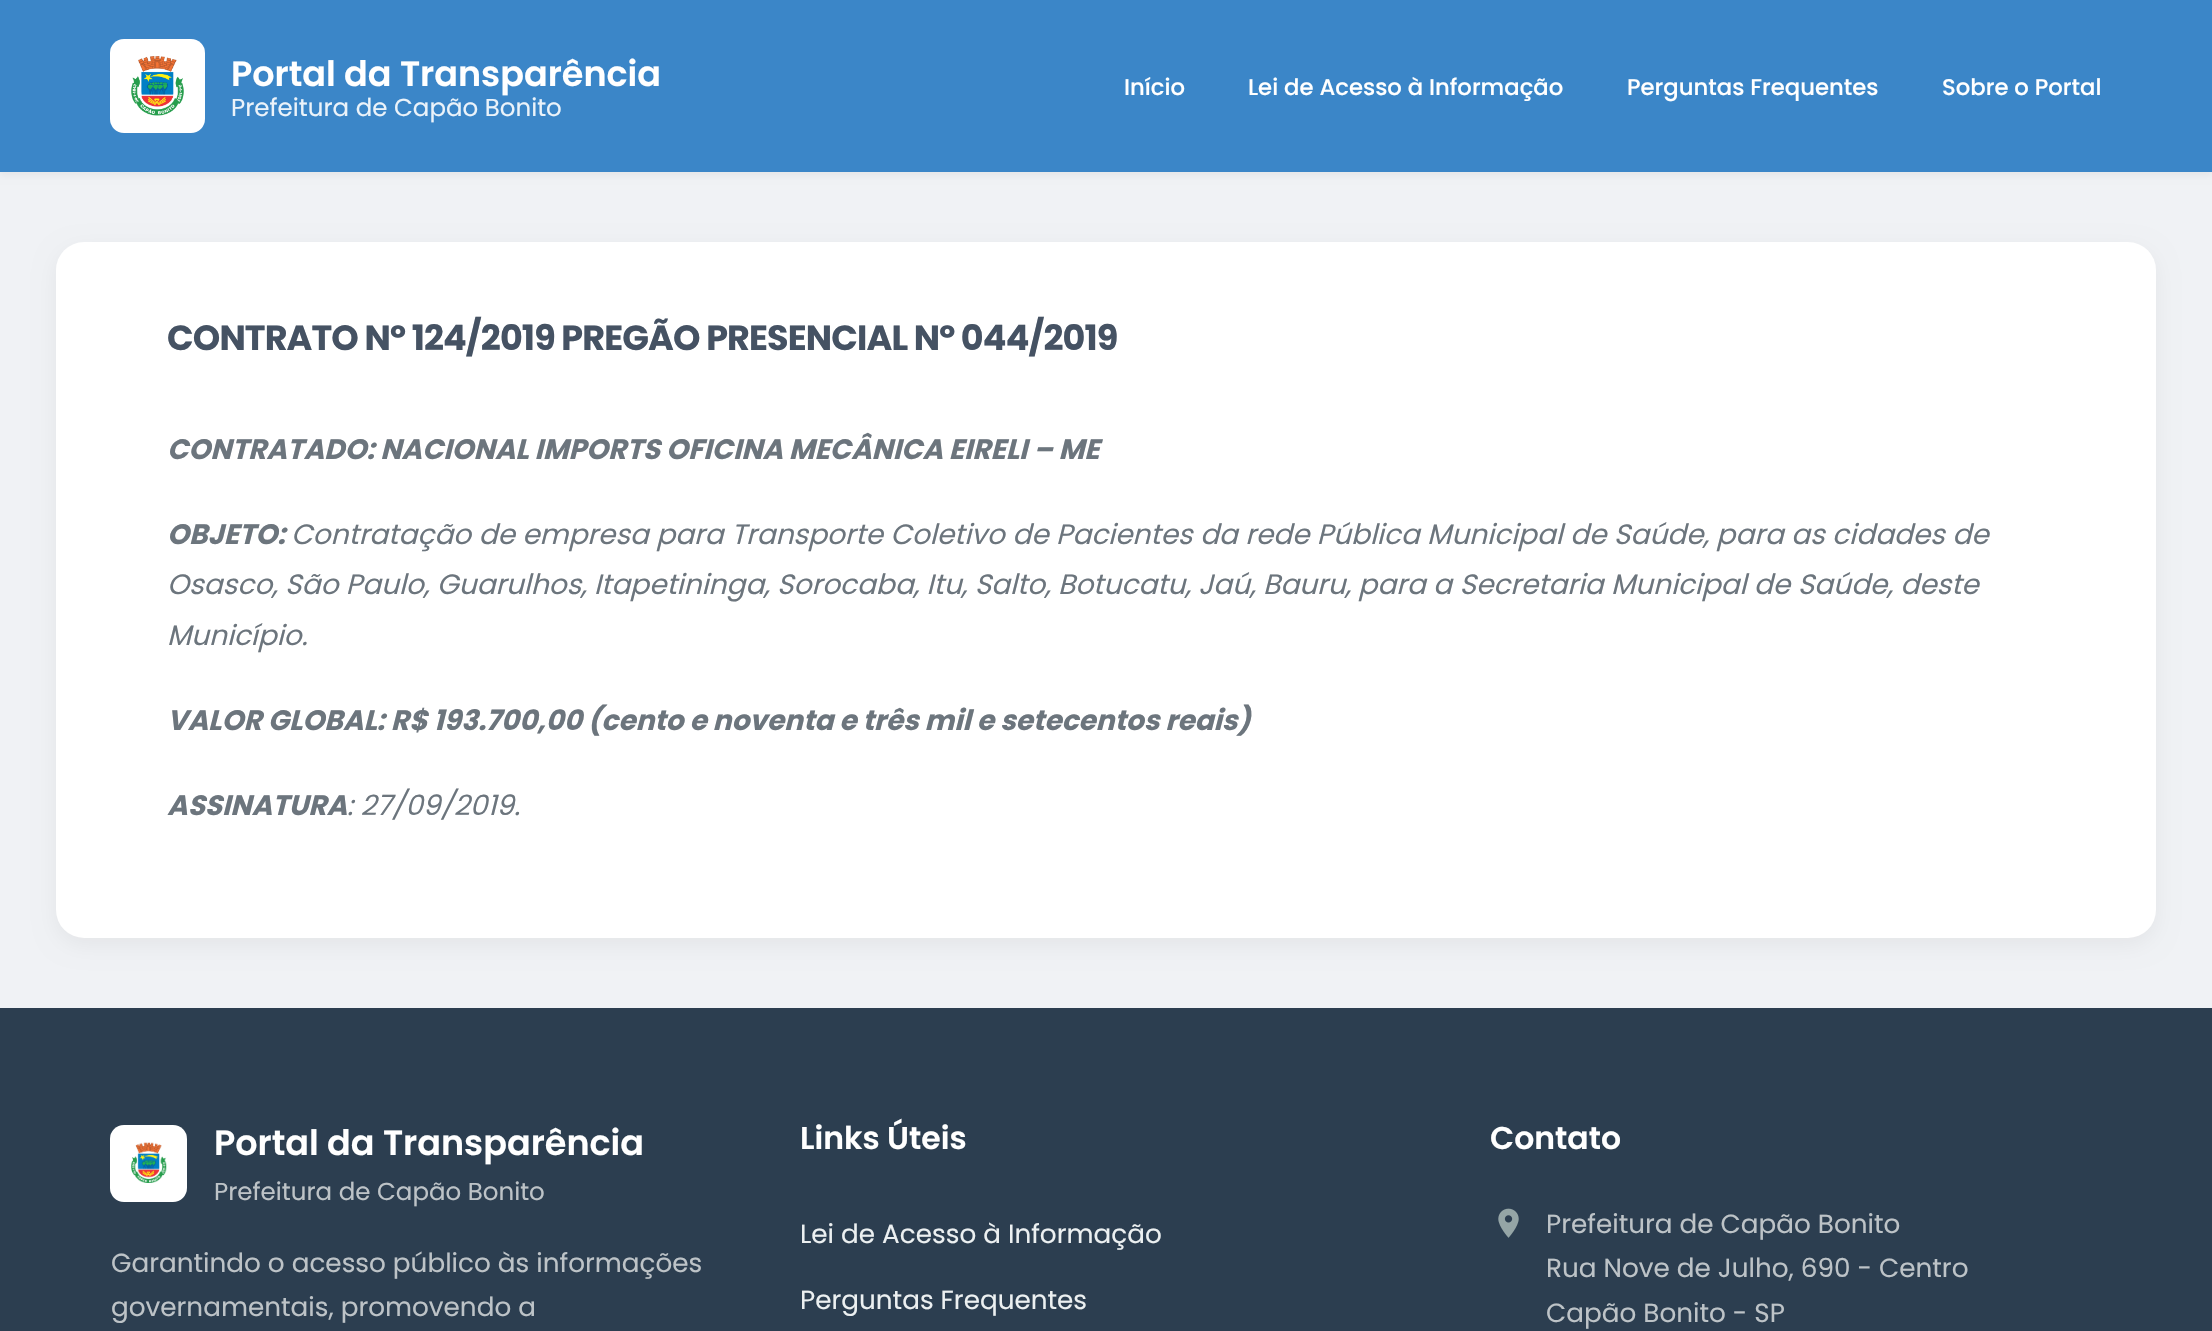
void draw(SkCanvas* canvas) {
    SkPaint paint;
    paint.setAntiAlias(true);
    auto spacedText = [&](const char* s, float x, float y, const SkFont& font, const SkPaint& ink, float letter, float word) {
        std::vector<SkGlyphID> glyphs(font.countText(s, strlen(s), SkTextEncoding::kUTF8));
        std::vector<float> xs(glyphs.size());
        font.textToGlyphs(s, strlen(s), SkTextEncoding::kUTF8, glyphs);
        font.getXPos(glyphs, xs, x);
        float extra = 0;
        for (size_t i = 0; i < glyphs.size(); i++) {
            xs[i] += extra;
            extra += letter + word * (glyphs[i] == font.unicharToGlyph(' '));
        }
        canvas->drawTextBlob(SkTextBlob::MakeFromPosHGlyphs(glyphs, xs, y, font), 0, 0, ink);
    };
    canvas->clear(0xFFF0F2F5);
    paint.setColor(0x0D000000);
    paint.setMaskFilter(SkMaskFilter::MakeBlur(kNormal_SkBlurStyle, 3.5f));
    canvas->drawRect(SkRect::MakeXYWH(0, 4, 2212, 171), paint);
    paint.setMaskFilter(nullptr);
    paint.setColor(0xFF3B86C8);
    canvas->drawRect(SkRect::MakeXYWH(0, 0, 2212, 172), paint);
    paint.setColor(0xFFFFFFFF);
    canvas->drawRoundRect(SkRect::MakeXYWH(110, 39, 95, 94), 14, 14, paint);
    canvas->drawImageRect(SkImages::DeferredFromEncodedData(SkData::MakeFromFileName("img1.png")), SkRect::MakeXYWH(131, 56, 53, 60), SkSamplingOptions());
    SkFont font1(fontMgr->matchFamilyStyle("Poppins", SkFontStyle(600, SkFontStyle::kNormal_Width, SkFontStyle::kUpright_Slant)), 35);
    font1.setSubpixel(true);
    canvas->drawString("Portal da Transparência", 231, 86, font1, paint);
    SkFont font2(fontMgr->matchFamilyStyle("Poppins", SkFontStyle::Normal()), 24.5f);
    font2.setSubpixel(true);
    paint.setColor(0xFFEBF3FA);
    canvas->drawString("Prefeitura de Capão Bonito", 231, 116, font2, paint);
    SkFont font3(fontMgr->matchFamilyStyle("Poppins", SkFontStyle(500, SkFontStyle::kNormal_Width, SkFontStyle::kUpright_Slant)), 22.75f);
    font3.setSubpixel(true);
    paint.setColor(0xFFFFFFFF);
    canvas->drawString("Início", 1124, 95, font3, paint);
    canvas->drawString("Lei de Acesso à Informação", 1248, 95, font3, paint);
    canvas->drawString("Perguntas Frequentes", 1627, 95, font3, paint);
    canvas->drawString("Sobre o Portal", 1942, 95, font3, paint);
    paint.setColor(0x0D000000);
    paint.setMaskFilter(SkMaskFilter::MakeBlur(kNormal_SkBlurStyle, 10.5f));
    canvas->drawRoundRect(SkRect::MakeXYWH(56, 249, 2100, 696), 28, 28, paint);
    paint.setMaskFilter(nullptr);
    paint.setColor(0xFFFFFFFF);
    canvas->drawRoundRect(SkRect::MakeXYWH(56, 242, 2100, 696), 28, 28, paint);
    SkFont font4(fontMgr->matchFamilyStyle("Poppins", SkFontStyle::Bold()), 35);
    font4.setSubpixel(true);
    paint.setColor(0xFF455263);
    spacedText("CONTRATO Nº 124/2019 PREGÃO PRESENCIAL Nº 044/2019", 167, 350, font4, paint, -0.88f, 0);
    SkFont font5(fontMgr->matchFamilyStyle("Poppins", SkFontStyle::BoldItalic()), 28);
    font5.setSubpixel(true);
    paint.setColor(0xFF6C757D);
    canvas->drawString("CONTRATADO: NACIONAL IMPORTS OFICINA MECÂNICA EIRELI – ME", 167, 459, font5, paint);
    canvas->drawString("OBJETO:", 167, 544, font5, paint);
    SkFont font6(fontMgr->matchFamilyStyle("Poppins", SkFontStyle::Italic()), 28);
    font6.setSubpixel(true);
    canvas->drawString("Contratação de empresa para Transporte Coletivo de Pacientes da rede Pública Municipal de Saúde, para as cidades de", 291, 544, font6, paint);
    canvas->drawString("Osasco, São Paulo, Guarulhos, Itapetininga, Sorocaba, Itu, Salto, Botucatu, Jaú, Bauru, para a Secretaria Municipal de Saúde, deste", 167, 594, font6, paint);
    canvas->drawString("Município.", 167, 645, font6, paint);
    canvas->drawString("VALOR GLOBAL: R$ 193.700,00 (cento e noventa e três mil e setecentos reais)", 167, 730, font5, paint);
    canvas->drawString("ASSINATURA", 167, 815, font5, paint);
    canvas->drawString(": 27/09/2019.", 347, 815, font6, paint);
    paint.setColor(0xFF2C3E50);
    canvas->drawRect(SkRect::MakeXYWH(0, 1008, 2212, 323), paint);
    paint.setColor(0xFFFFFFFF);
    canvas->drawRoundRect(SkRect::MakeXYWH(110, 1125, 77, 77), 14, 14, paint);
    canvas->drawImageRect(SkImages::DeferredFromEncodedData(SkData::MakeFromFileName("img2.png")), SkRect::MakeXYWH(131, 1142, 36, 41), SkSamplingOptions());
    canvas->drawString("Portal da Transparência", 214, 1155, font1, paint);
    paint.setColor(0xFFBDC3C7);
    canvas->drawString("Prefeitura de Capão Bonito", 214, 1200, font2, paint);
    SkFont font7(fontMgr->matchFamilyStyle("Poppins", SkFontStyle::Normal()), 26.25f);
    font7.setSubpixel(true);
    canvas->drawString("Garantindo o acesso público às informações", 111, 1272, font7, paint);
    canvas->drawString("governamentais, promovendo a", 111, 1316, font7, paint);
    SkFont font8(fontMgr->matchFamilyStyle("Poppins", SkFontStyle(600, SkFontStyle::kNormal_Width, SkFontStyle::kUpright_Slant)), 31.5f);
    font8.setSubpixel(true);
    paint.setColor(0xFFFFFFFF);
    canvas->drawString("Links Úteis", 800, 1149, font8, paint);
    paint.setColor(0xFFECF0F1);
    canvas->drawString("Lei de Acesso à Informação", 800, 1243, font7, paint);
    canvas->drawString("Perguntas Frequentes", 800, 1309, font7, paint);
    paint.setColor(0xFFFFFFFF);
    canvas->drawString("Contato", 1490, 1149, font8, paint);
    canvas->drawImageRect(SkImages::DeferredFromEncodedData(SkData::MakeFromFileName("img3.png")), SkRect::MakeXYWH(1498, 1208, 21, 30), SkSamplingOptions());
    paint.setColor(0xFFBDC3C7);
    canvas->drawString("Prefeitura de Capão Bonito", 1546, 1233, font7, paint);
    canvas->drawString("Rua Nove de Julho, 690 - Centro", 1546, 1277, font7, paint);
    canvas->drawString("Capão Bonito - SP", 1546, 1322, font7, paint);
}
